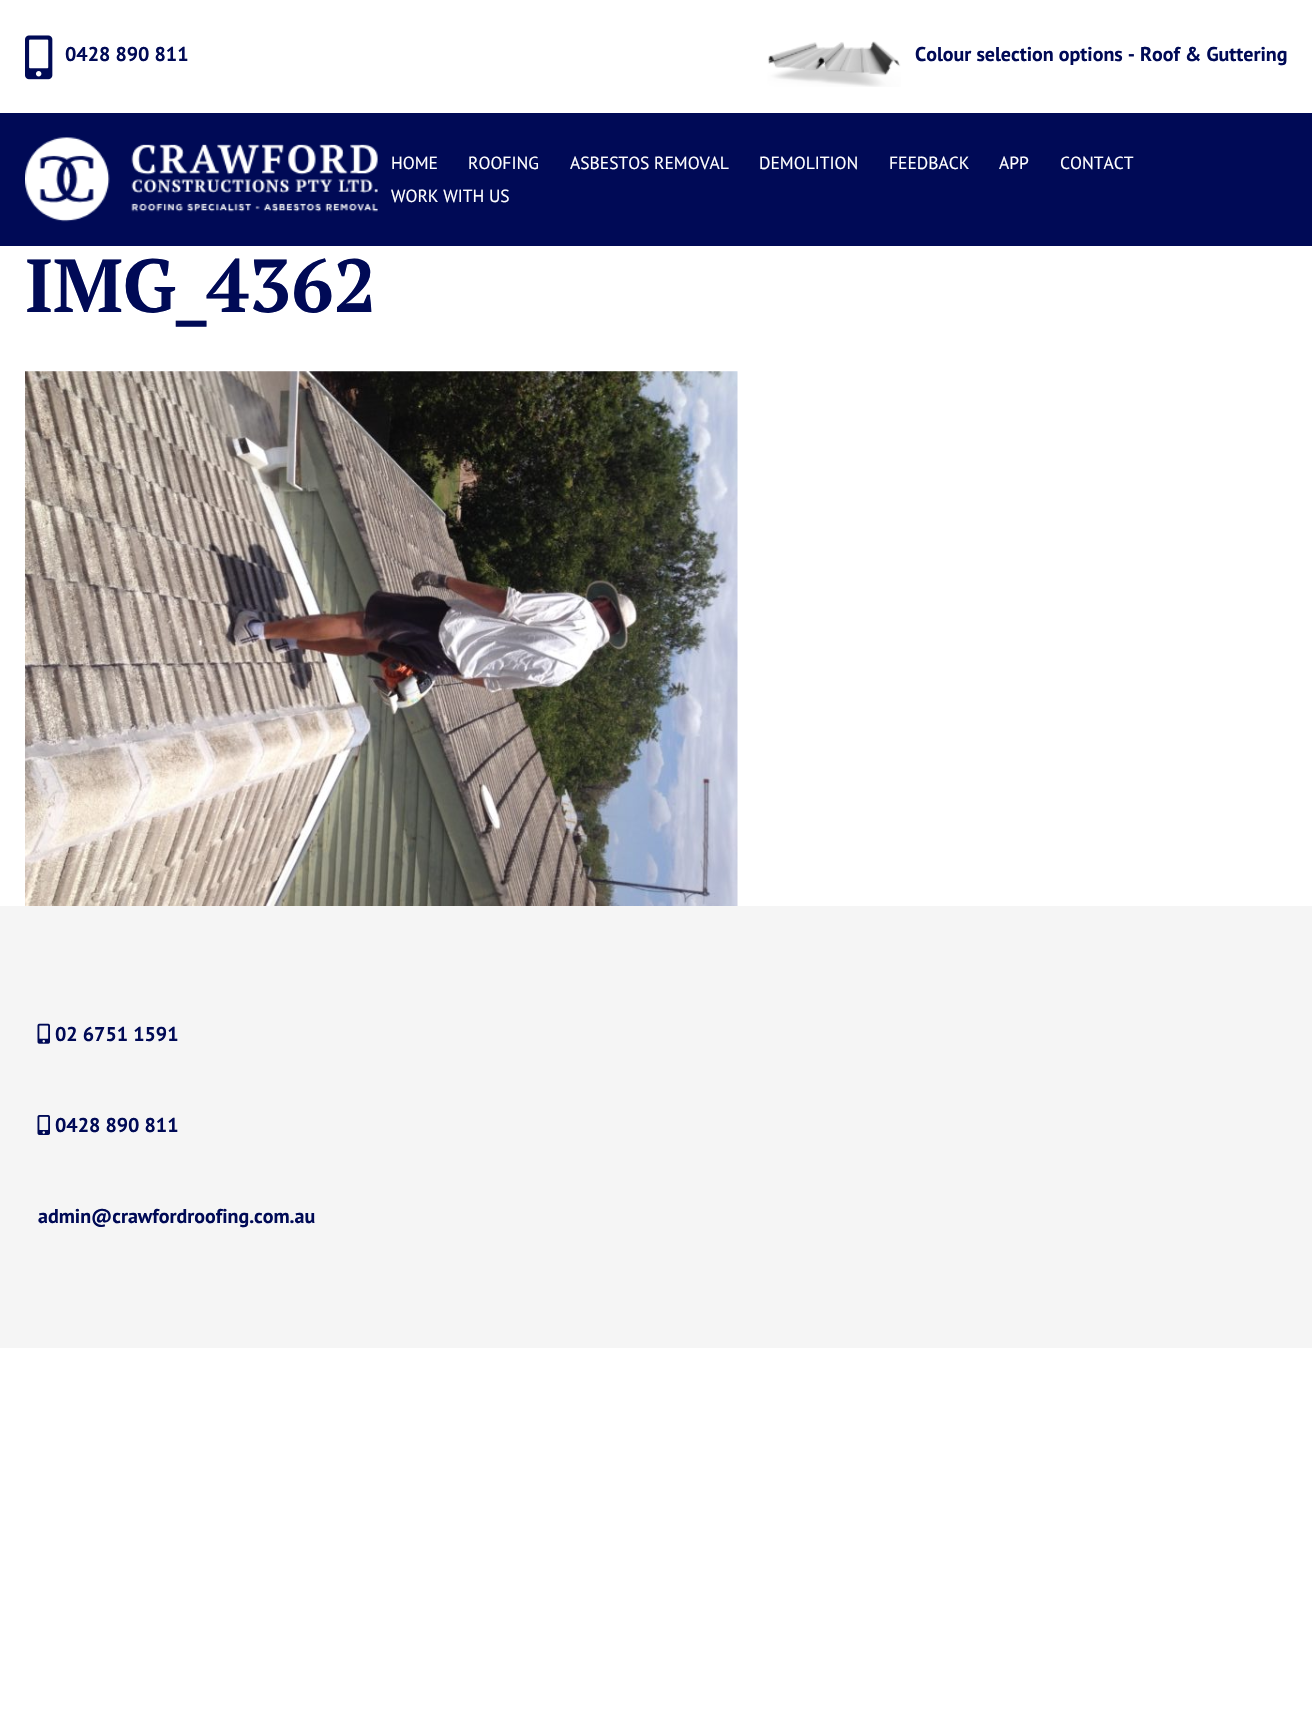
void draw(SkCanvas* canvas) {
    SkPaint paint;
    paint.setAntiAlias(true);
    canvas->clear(0xFFFFFFFF);
    canvas->drawImageRect(SkImages::DeferredFromEncodedData(SkData::MakeFromFileName("img1.png")), SkRect::MakeXYWH(25, 35, 28, 45), SkSamplingOptions());
    SkFont font1(fontMgr->matchFamilyStyle("PT Sans", SkFontStyle::Bold()), 20);
    font1.setSubpixel(true);
    paint.setColor(0xFF000A56);
    canvas->drawString("0428 890 811", 65, 61, font1, paint);
    canvas->drawImageRect(SkImages::DeferredFromEncodedData(SkData::MakeFromFileName("img2.png")), SkRect::MakeXYWH(767, 41, 134, 46), SkSamplingOptions());
    canvas->drawString("Colour selection options - Roof & Guttering", 915, 61, font1, paint);
    canvas->drawRect(SkRect::MakeXYWH(0, 113, 1312, 133), paint);
    canvas->drawImageRect(SkImages::DeferredFromEncodedData(SkData::MakeFromFileName("img3.png")), SkRect::MakeXYWH(25, 137, 353, 85), SkSamplingOptions());
    SkFont font2(fontMgr->matchFamilyStyle("PT Sans", SkFontStyle::Normal()), 17.5f);
    font2.setSubpixel(true);
    paint.setColor(0xFFFFFFFF);
    canvas->drawString("HOME", 391, 169, font2, paint);
    canvas->drawString("ROOFING", 468, 169, font2, paint);
    canvas->drawString("ASBESTOS REMOVAL", 570, 169, font2, paint);
    canvas->drawString("DEMOLITION", 759, 169, font2, paint);
    canvas->drawString("FEEDBACK", 889, 169, font2, paint);
    canvas->drawString("APP", 999, 169, font2, paint);
    canvas->drawString("CONTACT", 1060, 169, font2, paint);
    canvas->drawString("WORK WITH US", 391, 202, font2, paint);
    SkFont font3(fontMgr->matchFamilyStyle("PT Serif", SkFontStyle::Bold()), 75);
    font3.setSubpixel(true);
    paint.setColor(0xFF000A56);
    canvas->drawString("IMG_4362", 25, 312, font3, paint);
    canvas->drawImageRect(SkImages::DeferredFromEncodedData(SkData::MakeFromFileName("img4.png")), SkRect::MakeXYWH(25, 371, 713, 535), SkSamplingOptions());
    paint.setColor(0xFFF5F5F5);
    canvas->drawRect(SkRect::MakeXYWH(0, 906, 1312, 442), paint);
    canvas->drawImageRect(SkImages::DeferredFromEncodedData(SkData::MakeFromFileName("img5.png")), SkRect::MakeXYWH(37, 1023, 13, 21), SkSamplingOptions());
    paint.setColor(0xFF000A56);
    canvas->drawString("02 6751 1591", 55, 1041, font1, paint);
    canvas->drawImageRect(SkImages::DeferredFromEncodedData(SkData::MakeFromFileName("img6.png")), SkRect::MakeXYWH(37, 1115, 13, 20), SkSamplingOptions());
    canvas->drawString("0428 890 811", 55, 1132, font1, paint);
    canvas->drawString("admin@crawfordroofing.com.au", 38, 1223, font1, paint);
}
